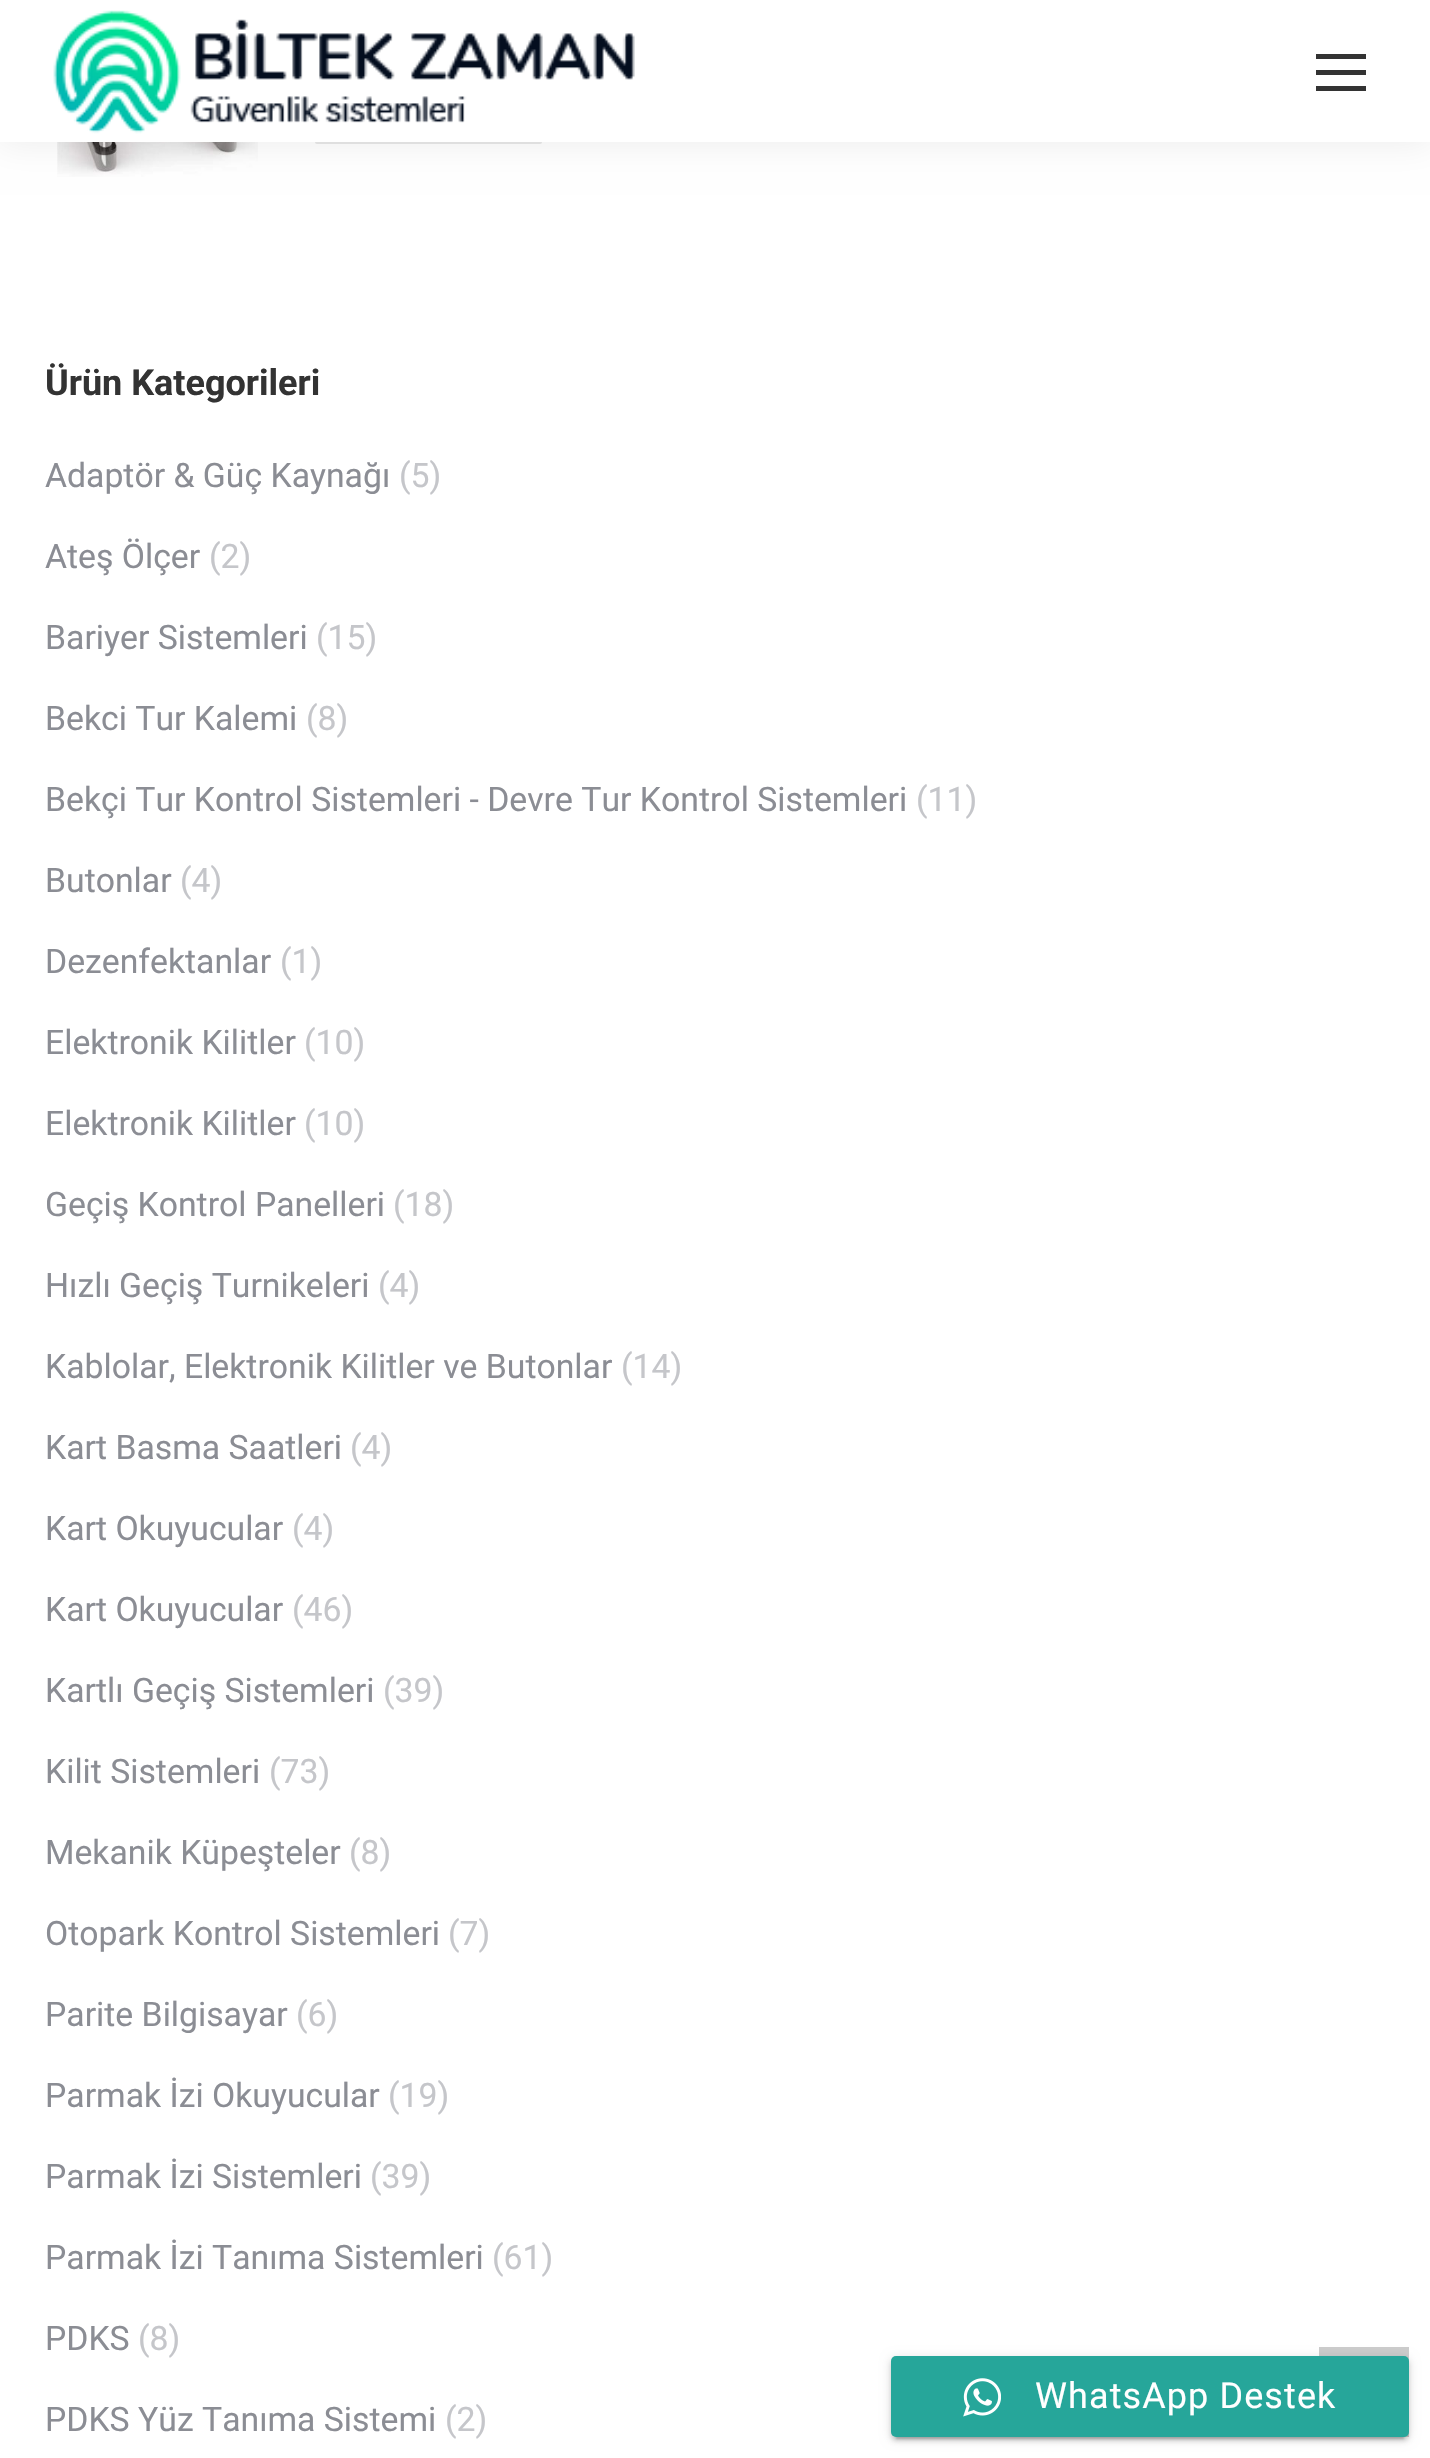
void draw(SkCanvas* canvas) {
    SkPaint paint;
    paint.setAntiAlias(true);
    auto spacedText = [&](const char* s, float x, float y, const SkFont& font, const SkPaint& ink, float letter, float word) {
        std::vector<SkGlyphID> glyphs(font.countText(s, strlen(s), SkTextEncoding::kUTF8));
        std::vector<float> xs(glyphs.size());
        font.textToGlyphs(s, strlen(s), SkTextEncoding::kUTF8, glyphs);
        font.getXPos(glyphs, xs, x);
        float extra = 0;
        for (size_t i = 0; i < glyphs.size(); i++) {
            xs[i] += extra;
            extra += letter + word * (glyphs[i] == font.unicharToGlyph(' '));
        }
        canvas->drawTextBlob(SkTextBlob::MakeFromPosHGlyphs(glyphs, xs, y, font), 0, 0, ink);
    };
    canvas->clear(0xFFFFFFFF);
    paint.setColor(0xFFE8E8E8);
    canvas->drawRoundRect(SkRect::MakeXYWH(315, 79, 227, 65), 2, 2, paint);
    canvas->drawImageRect(SkImages::DeferredFromEncodedData(SkData::MakeFromFileName("img2.png")), SkRect::MakeXYWH(57, 142, 201, 35), SkSamplingOptions());
    paint.setColor(0x12000000);
    paint.setMaskFilter(SkMaskFilter::MakeBlur(kNormal_SkBlurStyle, 17));
    canvas->drawRect(SkRect::MakeXYWH(-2, -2, 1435, 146), paint);
    paint.setMaskFilter(nullptr);
    paint.setColor(0xFFFFFFFF);
    canvas->drawRect(SkRect::MakeXYWH(0, 0, 1430, 142), paint);
    canvas->drawImageRect(SkImages::DeferredFromEncodedData(SkData::MakeFromFileName("img1.png")), SkRect::MakeXYWH(53, 10, 582, 124), SkSamplingOptions());
    paint.setColor(0xFF333333);
    canvas->drawRect(SkRect::MakeXYWH(1316, 54, 50, 5), paint);
    canvas->drawRect(SkRect::MakeXYWH(1316, 70, 50, 5), paint);
    canvas->drawRect(SkRect::MakeXYWH(1316, 86, 50, 5), paint);
    SkFont font1(fontMgr->matchFamilyStyle("Roboto", SkFontStyle::Bold()), 36);
    font1.setSubpixel(true);
    canvas->drawString("Ürün Kategorileri", 45, 395, font1, paint);
    SkFont font2(fontMgr->matchFamilyStyle("Roboto", SkFontStyle::Normal()), 33.75f);
    font2.setSubpixel(true);
    paint.setColor(0xFF8B8D94);
    canvas->drawString("Adaptör & Güç Kaynağı", 45, 487, font2, paint);
    paint.setColor(0xFFC5C6CA);
    canvas->drawString("(5)", 399, 487, font2, paint);
    paint.setColor(0xFF8B8D94);
    canvas->drawString("Ateş Ölçer", 45, 568, font2, paint);
    paint.setColor(0xFFC5C6CA);
    canvas->drawString("(2)", 209, 568, font2, paint);
    paint.setColor(0xFF8B8D94);
    canvas->drawString("Bariyer Sistemleri", 45, 649, font2, paint);
    paint.setColor(0xFFC5C6CA);
    canvas->drawString("(15)", 316, 649, font2, paint);
    paint.setColor(0xFF8B8D94);
    canvas->drawString("Bekci Tur Kalemi", 45, 730, font2, paint);
    paint.setColor(0xFFC5C6CA);
    canvas->drawString("(8)", 306, 730, font2, paint);
    paint.setColor(0xFF8B8D94);
    canvas->drawString("Bekçi Tur Kontrol Sistemleri - Devre Tur Kontrol Sistemleri", 45, 811, font2, paint);
    paint.setColor(0xFFC5C6CA);
    canvas->drawString("(11)", 916, 811, font2, paint);
    paint.setColor(0xFF8B8D94);
    canvas->drawString("Butonlar", 45, 892, font2, paint);
    paint.setColor(0xFFC5C6CA);
    canvas->drawString("(4)", 180, 892, font2, paint);
    paint.setColor(0xFF8B8D94);
    canvas->drawString("Dezenfektanlar", 45, 973, font2, paint);
    paint.setColor(0xFFC5C6CA);
    canvas->drawString("(1)", 280, 973, font2, paint);
    paint.setColor(0xFF8B8D94);
    canvas->drawString("Elektronik Kilitler", 45, 1054, font2, paint);
    paint.setColor(0xFFC5C6CA);
    canvas->drawString("(10)", 304, 1054, font2, paint);
    paint.setColor(0xFF8B8D94);
    canvas->drawString("Elektronik Kilitler", 45, 1135, font2, paint);
    paint.setColor(0xFFC5C6CA);
    canvas->drawString("(10)", 304, 1135, font2, paint);
    paint.setColor(0xFF8B8D94);
    canvas->drawString("Geçiş Kontrol Panelleri", 45, 1216, font2, paint);
    paint.setColor(0xFFC5C6CA);
    canvas->drawString("(18)", 393, 1216, font2, paint);
    paint.setColor(0xFF8B8D94);
    canvas->drawString("Hızlı Geçiş Turnikeleri", 45, 1297, font2, paint);
    paint.setColor(0xFFC5C6CA);
    canvas->drawString("(4)", 378, 1297, font2, paint);
    paint.setColor(0xFF8B8D94);
    canvas->drawString("Kablolar, Elektronik Kilitler ve Butonlar", 45, 1378, font2, paint);
    paint.setColor(0xFFC5C6CA);
    canvas->drawString("(14)", 621, 1378, font2, paint);
    paint.setColor(0xFF8B8D94);
    canvas->drawString("Kart Basma Saatleri", 45, 1459, font2, paint);
    paint.setColor(0xFFC5C6CA);
    canvas->drawString("(4)", 350, 1459, font2, paint);
    paint.setColor(0xFF8B8D94);
    canvas->drawString("Kart Okuyucular", 45, 1540, font2, paint);
    paint.setColor(0xFFC5C6CA);
    canvas->drawString("(4)", 292, 1540, font2, paint);
    paint.setColor(0xFF8B8D94);
    canvas->drawString("Kart Okuyucular", 45, 1621, font2, paint);
    paint.setColor(0xFFC5C6CA);
    canvas->drawString("(46)", 292, 1621, font2, paint);
    paint.setColor(0xFF8B8D94);
    canvas->drawString("Kartlı Geçiş Sistemleri", 45, 1702, font2, paint);
    paint.setColor(0xFFC5C6CA);
    canvas->drawString("(39)", 383, 1702, font2, paint);
    paint.setColor(0xFF8B8D94);
    canvas->drawString("Kilit Sistemleri", 45, 1783, font2, paint);
    paint.setColor(0xFFC5C6CA);
    canvas->drawString("(73)", 269, 1783, font2, paint);
    paint.setColor(0xFF8B8D94);
    canvas->drawString("Mekanik Küpeşteler", 45, 1864, font2, paint);
    paint.setColor(0xFFC5C6CA);
    canvas->drawString("(8)", 349, 1864, font2, paint);
    paint.setColor(0xFF8B8D94);
    canvas->drawString("Otopark Kontrol Sistemleri", 45, 1945, font2, paint);
    paint.setColor(0xFFC5C6CA);
    canvas->drawString("(7)", 448, 1945, font2, paint);
    paint.setColor(0xFF8B8D94);
    canvas->drawString("Parite Bilgisayar", 45, 2026, font2, paint);
    paint.setColor(0xFFC5C6CA);
    canvas->drawString("(6)", 296, 2026, font2, paint);
    paint.setColor(0xFF8B8D94);
    canvas->drawString("Parmak İzi Okuyucular", 45, 2107, font2, paint);
    paint.setColor(0xFFC5C6CA);
    canvas->drawString("(19)", 388, 2107, font2, paint);
    paint.setColor(0xFF8B8D94);
    canvas->drawString("Parmak İzi Sistemleri", 45, 2188, font2, paint);
    paint.setColor(0xFFC5C6CA);
    canvas->drawString("(39)", 370, 2188, font2, paint);
    paint.setColor(0xFF8B8D94);
    canvas->drawString("Parmak İzi Tanıma Sistemleri", 45, 2269, font2, paint);
    paint.setColor(0xFFC5C6CA);
    canvas->drawString("(61)", 492, 2269, font2, paint);
    paint.setColor(0xFF8B8D94);
    canvas->drawString("PDKS", 45, 2350, font2, paint);
    paint.setColor(0xFFC5C6CA);
    canvas->drawString("(8)", 138, 2350, font2, paint);
    paint.setColor(0xFF8B8D94);
    canvas->drawString("PDKS Yüz Tanıma Sistemi", 45, 2431, font2, paint);
    paint.setColor(0xFFC5C6CA);
    canvas->drawString("(2)", 445, 2431, font2, paint);
    paint.setColor(0xFFCCCCCC);
    canvas->drawRect(SkRect::MakeXYWH(1319, 2347, 90, 90), paint);
    paint.setColor(0x33000000);
    paint.setMaskFilter(SkMaskFilter::MakeBlur(kNormal_SkBlurStyle, 1));
    canvas->drawRect(SkRect::MakeXYWH(896, 2367, 508, 72), paint);
    paint.setMaskFilter(nullptr);
    paint.setColor(0x1F000000);
    paint.setMaskFilter(SkMaskFilter::MakeBlur(kNormal_SkBlurStyle, 5.5f));
    canvas->drawRoundRect(SkRect::MakeXYWH(891, 2358, 518, 81), 5, 5, paint);
    paint.setMaskFilter(nullptr);
    paint.setColor(0x24000000);
    paint.setMaskFilter(SkMaskFilter::MakeBlur(kNormal_SkBlurStyle, 2));
    canvas->drawRoundRect(SkRect::MakeXYWH(891, 2360, 518, 81), 5, 5, paint);
    paint.setMaskFilter(nullptr);
    paint.setColor(0xFF26A69A);
    canvas->drawRoundRect(SkRect::MakeXYWH(891, 2356, 518, 81), 5, 5, paint);
    canvas->drawImageRect(SkImages::DeferredFromEncodedData(SkData::MakeFromFileName("img3.png")), SkRect::MakeXYWH(963, 2378, 38, 39), SkSamplingOptions());
    SkFont font3(fontMgr->matchFamilyStyle("Roboto", SkFontStyle::Normal()), 36);
    font3.setSubpixel(true);
    paint.setColor(0xFFFFFFFF);
    spacedText("WhatsApp Destek", 1035, 2408, font3, paint, 1.1f, 0);
}
